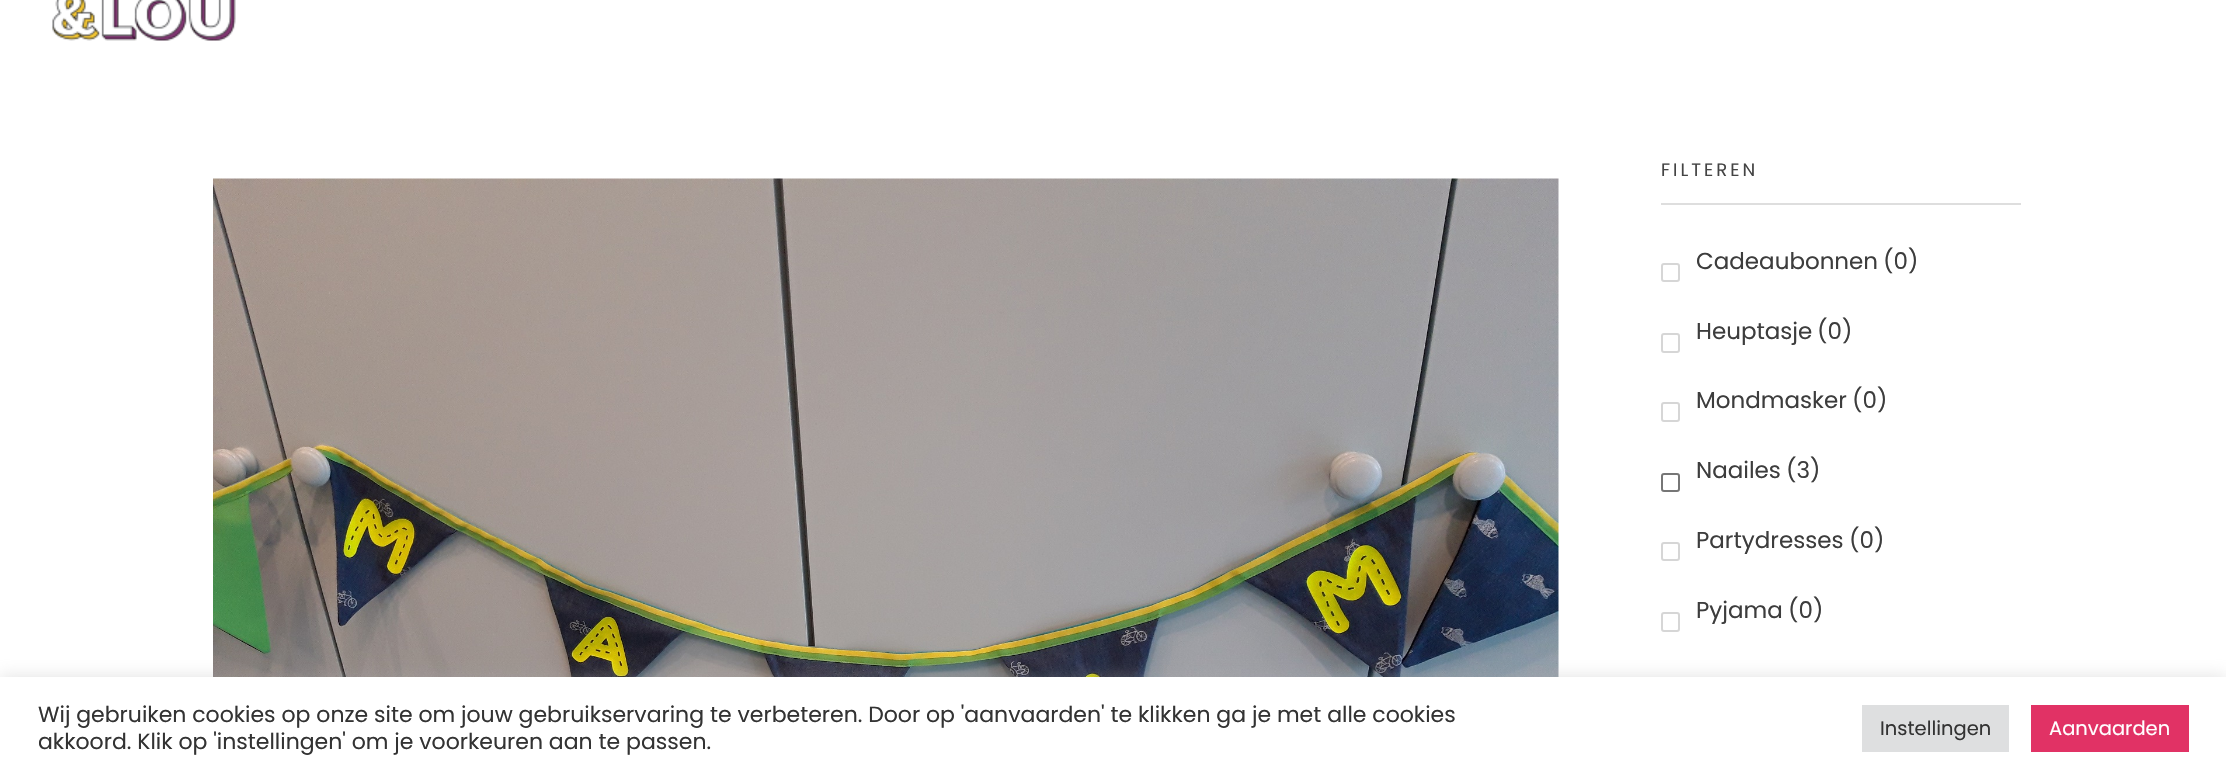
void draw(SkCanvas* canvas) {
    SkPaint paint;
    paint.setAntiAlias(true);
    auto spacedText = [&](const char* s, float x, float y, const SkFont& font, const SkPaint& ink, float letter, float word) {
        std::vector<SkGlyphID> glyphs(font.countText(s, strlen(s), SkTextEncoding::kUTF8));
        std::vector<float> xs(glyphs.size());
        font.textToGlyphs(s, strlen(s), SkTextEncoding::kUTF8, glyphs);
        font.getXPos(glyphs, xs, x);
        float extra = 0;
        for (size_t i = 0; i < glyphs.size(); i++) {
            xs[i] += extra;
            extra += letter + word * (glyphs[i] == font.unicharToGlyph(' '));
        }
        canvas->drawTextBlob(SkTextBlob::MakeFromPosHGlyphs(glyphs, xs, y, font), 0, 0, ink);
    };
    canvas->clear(0xFFFFFFFF);
    canvas->drawImageRect(SkImages::DeferredFromEncodedData(SkData::MakeFromFileName("img1.png")), SkRect::MakeXYWH(52, 0, 184, 41), SkSamplingOptions());
    canvas->drawImageRect(SkImages::DeferredFromEncodedData(SkData::MakeFromFileName("img2.png")), SkRect::MakeXYWH(213, 178, 1346, 499), SkSamplingOptions());
    paint.setColor(0xFFDEDEDE);
    canvas->drawRect(SkRect::MakeXYWH(1661, 203, 360, 2), paint);
    SkFont font1(fontMgr->matchFamilyStyle("Poppins", SkFontStyle::Normal()), 18);
    font1.setSubpixel(true);
    paint.setColor(0xFF444444);
    spacedText("FILTEREN", 1661, 176, font1, paint, 3, 0);
    paint.setStyle(SkPaint::kStroke_Style);
    paint.setStrokeWidth(2);
    paint.setColor(0xFFD6D6D6);
    canvas->drawRoundRect(SkRect::MakeXYWH(1662, 264, 17, 17), 2, 2, paint);
    SkFont font2(fontMgr->matchFamilyStyle("Poppins", SkFontStyle::Normal()), 23);
    font2.setSubpixel(true);
    paint.setStyle(SkPaint::kFill_Style);
    paint.setColor(0xFF3D3D3D);
    canvas->drawString("Cadeaubonnen", 1696, 269, font2, paint);
    canvas->drawString("(0)", 1883, 269, font2, paint);
    paint.setStyle(SkPaint::kStroke_Style);
    paint.setColor(0xFFD6D6D6);
    canvas->drawRoundRect(SkRect::MakeXYWH(1662, 334, 17, 18), 2, 2, paint);
    paint.setStyle(SkPaint::kFill_Style);
    paint.setColor(0xFF3D3D3D);
    canvas->drawString("Heuptasje", 1696, 339, font2, paint);
    canvas->drawString("(0)", 1817, 339, font2, paint);
    paint.setStyle(SkPaint::kStroke_Style);
    paint.setColor(0xFFD6D6D6);
    canvas->drawRoundRect(SkRect::MakeXYWH(1662, 403, 17, 18), 2, 2, paint);
    paint.setStyle(SkPaint::kFill_Style);
    paint.setColor(0xFF3D3D3D);
    canvas->drawString("Mondmasker", 1696, 408, font2, paint);
    canvas->drawString("(0)", 1852, 408, font2, paint);
    paint.setStyle(SkPaint::kStroke_Style);
    paint.setColor(0xFF767676);
    canvas->drawRoundRect(SkRect::MakeXYWH(1662, 474, 17, 17), 2, 2, paint);
    paint.setStyle(SkPaint::kFill_Style);
    paint.setColor(0xFF3D3D3D);
    canvas->drawString("Naailes", 1696, 478, font2, paint);
    canvas->drawString("(3)", 1786, 478, font2, paint);
    paint.setStyle(SkPaint::kStroke_Style);
    paint.setColor(0xFFD6D6D6);
    canvas->drawRoundRect(SkRect::MakeXYWH(1662, 543, 17, 17), 2, 2, paint);
    paint.setStyle(SkPaint::kFill_Style);
    paint.setColor(0xFF3D3D3D);
    canvas->drawString("Partydresses", 1696, 548, font2, paint);
    canvas->drawString("(0)", 1849, 548, font2, paint);
    paint.setStyle(SkPaint::kStroke_Style);
    paint.setColor(0xFFD6D6D6);
    canvas->drawRoundRect(SkRect::MakeXYWH(1662, 613, 17, 18), 2, 2, paint);
    paint.setStyle(SkPaint::kFill_Style);
    paint.setColor(0xFF3D3D3D);
    canvas->drawString("Pyjama", 1696, 618, font2, paint);
    canvas->drawString("(0)", 1788, 618, font2, paint);
    paint.setColor(0x4DACABAB);
    paint.setMaskFilter(SkMaskFilter::MakeBlur(kNormal_SkBlurStyle, 7.5f));
    canvas->drawRect(SkRect::MakeXYWH(0, 675, 2226, 104), paint);
    paint.setMaskFilter(nullptr);
    paint.setColor(0xFFFFFFFF);
    canvas->drawRect(SkRect::MakeXYWH(0, 677, 2226, 102), paint);
    SkFont font3(fontMgr->matchFamilyStyle("Poppins", SkFontStyle::Normal()), 22);
    font3.setSubpixel(true);
    paint.setColor(0xFF333333);
    canvas->drawString("Wij gebruiken cookies op onze site om jouw gebruikservaring te verbeteren. Door op 'aanvaarden' te klikken ga je met alle cookies", 38, 722, font3, paint);
    canvas->drawString("akkoord. Klik op 'instellingen' om je voorkeuren aan te passen.", 38, 749, font3, paint);
    paint.setColor(0xFFDEDFE0);
    canvas->drawRect(SkRect::MakeXYWH(1862, 705, 147, 47), paint);
    SkFont font4(fontMgr->matchFamilyStyle("Poppins", SkFontStyle::Normal()), 19.5f);
    font4.setSubpixel(true);
    paint.setColor(0xFF333333);
    canvas->drawString("Instellingen", 1880, 735, font4, paint);
    paint.setColor(0xFFE13265);
    canvas->drawRect(SkRect::MakeXYWH(2031, 705, 158, 47), paint);
    paint.setColor(0xFFFFFFFF);
    canvas->drawString("Aanvaarden", 2049, 735, font4, paint);
}
